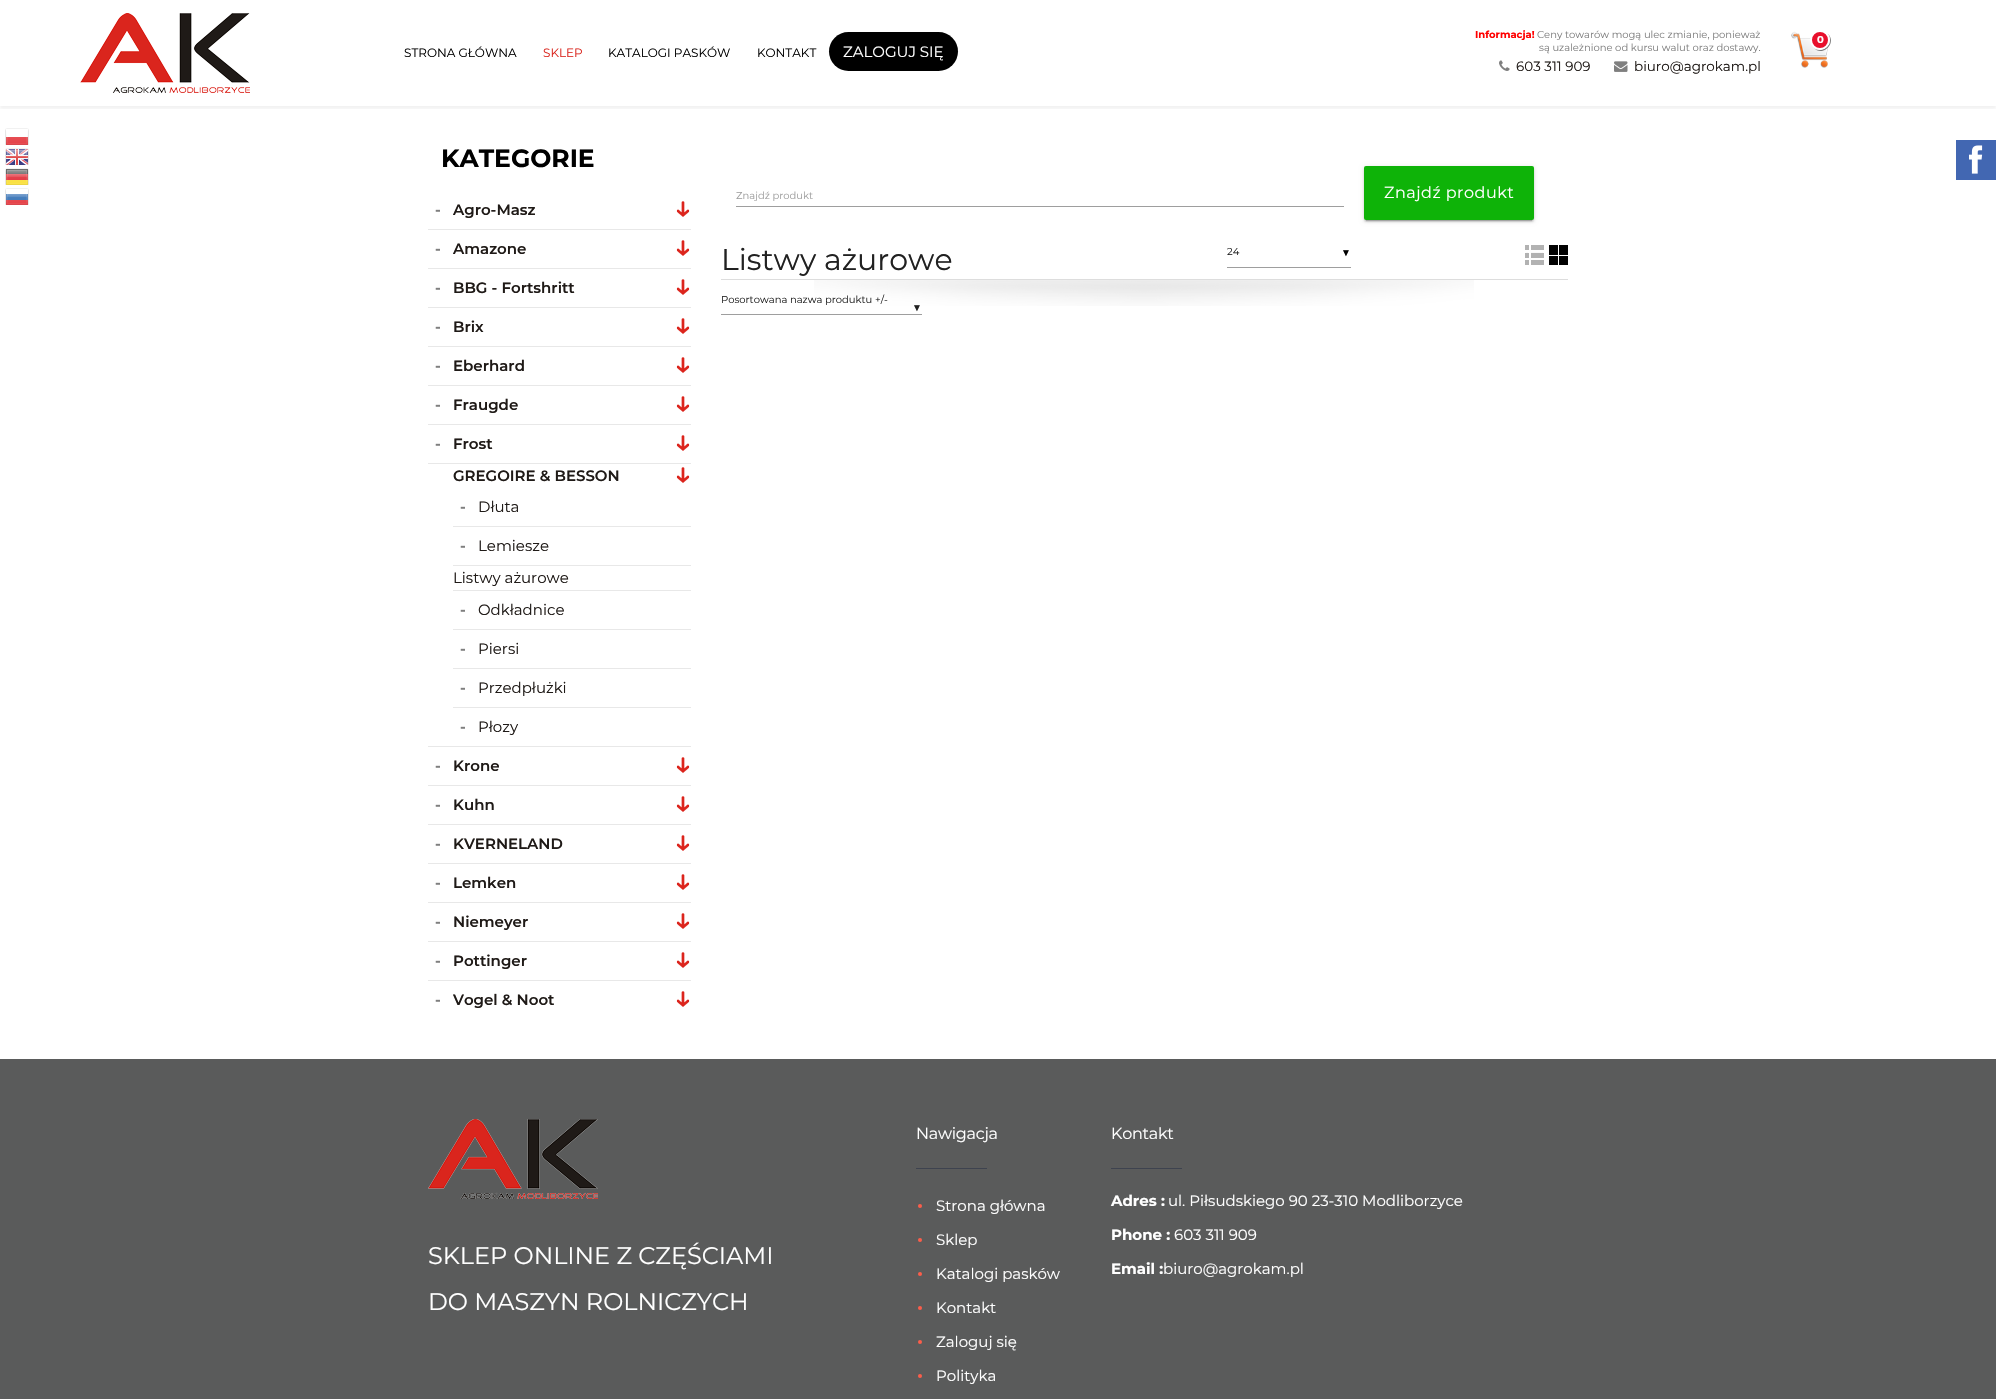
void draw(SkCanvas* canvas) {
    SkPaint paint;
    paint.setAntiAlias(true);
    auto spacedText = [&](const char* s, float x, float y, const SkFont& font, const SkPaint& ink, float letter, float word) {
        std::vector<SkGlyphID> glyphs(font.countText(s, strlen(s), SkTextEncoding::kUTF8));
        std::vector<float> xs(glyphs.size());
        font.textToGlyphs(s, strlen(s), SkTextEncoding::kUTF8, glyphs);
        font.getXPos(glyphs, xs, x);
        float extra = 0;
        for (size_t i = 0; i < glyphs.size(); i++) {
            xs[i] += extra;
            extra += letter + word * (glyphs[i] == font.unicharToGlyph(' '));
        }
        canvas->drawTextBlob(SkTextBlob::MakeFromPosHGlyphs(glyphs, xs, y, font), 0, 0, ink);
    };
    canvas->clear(0xFFFFFFFF);
    canvas->drawImageRect(SkImages::DeferredFromEncodedData(SkData::MakeFromFileName("img1.png")), SkRect::MakeXYWH(5, 128, 24, 17), SkSamplingOptions());
    canvas->drawImageRect(SkImages::DeferredFromEncodedData(SkData::MakeFromFileName("img2.png")), SkRect::MakeXYWH(5, 148, 24, 17), SkSamplingOptions());
    canvas->drawImageRect(SkImages::DeferredFromEncodedData(SkData::MakeFromFileName("img3.png")), SkRect::MakeXYWH(5, 168, 24, 17), SkSamplingOptions());
    canvas->drawImageRect(SkImages::DeferredFromEncodedData(SkData::MakeFromFileName("img4.png")), SkRect::MakeXYWH(5, 188, 24, 17), SkSamplingOptions());
    canvas->save();
    canvas->clipRect(SkRect::MakeXYWH(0, 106, 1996, 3));
    paint.setColor(0x0D000000);
    paint.setMaskFilter(SkMaskFilter::MakeBlur(kNormal_SkBlurStyle, 1.5f));
    canvas->drawRect(SkRect::MakeXYWH(0, 3, 1996, 106), paint);
    paint.setMaskFilter(nullptr);
    canvas->restore();
    canvas->drawImageRect(SkImages::DeferredFromEncodedData(SkData::MakeFromFileName("img5.png")), SkRect::MakeXYWH(80, 13, 170, 80), SkSamplingOptions());
    SkFont font1(fontMgr->matchFamilyStyle("Montserrat", SkFontStyle::Bold()), 10);
    font1.setSubpixel(true);
    paint.setColor(0xFFFF0000);
    canvas->drawString("Informacja!", 1475, 38, font1, paint);
    SkFont font2(fontMgr->matchFamilyStyle("Montserrat", SkFontStyle::Normal()), 10);
    font2.setSubpixel(true);
    paint.setColor(0xFF7F7F7F);
    canvas->drawString("Ceny towarów mogą ulec zmianie, ponieważ", 1537, 38, font2, paint);
    canvas->drawString("są uzależnione od kursu walut oraz dostawy.", 1539, 51, font2, paint);
    canvas->drawImageRect(SkImages::DeferredFromEncodedData(SkData::MakeFromFileName("img6.png")), SkRect::MakeXYWH(1499, 60, 11, 11), SkSamplingOptions());
    SkFont font3(fontMgr->matchFamilyStyle("Montserrat", SkFontStyle::Normal()), 13.5f);
    font3.setSubpixel(true);
    paint.setColor(0xFF1F1A17);
    canvas->drawString("603 311 909", 1516, 71, font3, paint);
    canvas->drawImageRect(SkImages::DeferredFromEncodedData(SkData::MakeFromFileName("img7.png")), SkRect::MakeXYWH(1614, 61, 14, 11), SkSamplingOptions());
    canvas->drawString("biuro@agrokam.pl", 1634, 71, font3, paint);
    canvas->drawImageRect(SkImages::DeferredFromEncodedData(SkData::MakeFromFileName("img8.png")), SkRect::MakeXYWH(1791, 31, 39, 37), SkSamplingOptions());
    paint.setColor(0x80000000);
    canvas->drawPath(SkPathBuilder().moveTo(1813.5f, 47.5f).cubicTo(1822.5f, 58, 1838, 42.5f, 1827.5f, 33.5f).cubicTo(1835.5f, 42.5f, 1822.5f, 55.5f, 1813.5f, 47.5f).close().detach(), paint);
    paint.setColor(0xFFE8102C);
    canvas->drawCircle(1820, 40, 9, paint);
    paint.setStyle(SkPaint::kStroke_Style);
    paint.setStrokeWidth(2);
    paint.setColor(0xFFFFFFFF);
    canvas->drawCircle(1820, 40, 9, paint);
    paint.setStyle(SkPaint::kFill_Style);
    canvas->drawString("0", 1817, 43, font1, paint);
    SkFont font4(fontMgr->matchFamilyStyle("Montserrat", SkFontStyle::Normal()), 12);
    font4.setSubpixel(true);
    paint.setColor(0xFF000000);
    canvas->drawString("STRONA GŁÓWNA", 404, 57, font4, paint);
    paint.setColor(0xFFDA251D);
    canvas->drawString("SKLEP", 543, 57, font4, paint);
    paint.setColor(0xFF000000);
    canvas->drawString("KATALOGI PASKÓW", 608, 57, font4, paint);
    canvas->drawString("KONTAKT", 757, 57, font4, paint);
    canvas->drawRoundRect(SkRect::MakeXYWH(829, 32, 129, 39), 19.5f, 19.5f, paint);
    SkFont font5(fontMgr->matchFamilyStyle("Montserrat", SkFontStyle::Normal()), 15);
    font5.setSubpixel(true);
    paint.setColor(0xFFFFFFFF);
    canvas->drawString("ZALOGUJ SIĘ", 843, 57, font5, paint);
    SkFont font6(fontMgr->matchFamilyStyle("Montserrat", SkFontStyle::Bold()), 25);
    font6.setSubpixel(true);
    paint.setColor(0xFF000000);
    canvas->drawString("KATEGORIE", 441, 167, font6, paint);
    paint.setColor(0xFFE8E8E8);
    canvas->drawRect(SkRect::MakeXYWH(428, 229, 263, 1), paint);
    SkFont font7(fontMgr->matchFamilyStyle("Montserrat", SkFontStyle::Bold()), 15);
    font7.setSubpixel(true);
    paint.setColor(0xFF7F7F7F);
    canvas->drawString("-", 435, 215, font7, paint);
    SkFont font8(fontMgr->matchFamilyStyle("Montserrat", SkFontStyle(600, SkFontStyle::kNormal_Width, SkFontStyle::kUpright_Slant)), 15);
    font8.setSubpixel(true);
    paint.setColor(0xFF1F1A17);
    canvas->drawString("Agro-Masz", 453, 215, font8, paint);
    canvas->drawImageRect(SkImages::DeferredFromEncodedData(SkData::MakeFromFileName("img9.png")), SkRect::MakeXYWH(676, 201, 14, 16), SkSamplingOptions());
    paint.setColor(0xFFE8E8E8);
    canvas->drawRect(SkRect::MakeXYWH(428, 268, 263, 1), paint);
    paint.setColor(0xFF7F7F7F);
    canvas->drawString("-", 435, 254, font7, paint);
    paint.setColor(0xFF1F1A17);
    canvas->drawString("Amazone", 453, 254, font8, paint);
    canvas->drawImageRect(SkImages::DeferredFromEncodedData(SkData::MakeFromFileName("img9.png")), SkRect::MakeXYWH(676, 240, 14, 16), SkSamplingOptions());
    paint.setColor(0xFFE8E8E8);
    canvas->drawRect(SkRect::MakeXYWH(428, 307, 263, 1), paint);
    paint.setColor(0xFF7F7F7F);
    canvas->drawString("-", 435, 293, font7, paint);
    paint.setColor(0xFF1F1A17);
    canvas->drawString("BBG - Fortshritt", 453, 293, font8, paint);
    canvas->drawImageRect(SkImages::DeferredFromEncodedData(SkData::MakeFromFileName("img9.png")), SkRect::MakeXYWH(676, 279, 14, 16), SkSamplingOptions());
    paint.setColor(0xFFE8E8E8);
    canvas->drawRect(SkRect::MakeXYWH(428, 346, 263, 1), paint);
    paint.setColor(0xFF7F7F7F);
    canvas->drawString("-", 435, 332, font7, paint);
    paint.setColor(0xFF1F1A17);
    canvas->drawString("Brix", 453, 332, font8, paint);
    canvas->drawImageRect(SkImages::DeferredFromEncodedData(SkData::MakeFromFileName("img9.png")), SkRect::MakeXYWH(676, 318, 14, 16), SkSamplingOptions());
    paint.setColor(0xFFE8E8E8);
    canvas->drawRect(SkRect::MakeXYWH(428, 385, 263, 1), paint);
    paint.setColor(0xFF7F7F7F);
    canvas->drawString("-", 435, 371, font7, paint);
    paint.setColor(0xFF1F1A17);
    canvas->drawString("Eberhard", 453, 371, font8, paint);
    canvas->drawImageRect(SkImages::DeferredFromEncodedData(SkData::MakeFromFileName("img9.png")), SkRect::MakeXYWH(676, 357, 14, 16), SkSamplingOptions());
    paint.setColor(0xFFE8E8E8);
    canvas->drawRect(SkRect::MakeXYWH(428, 424, 263, 1), paint);
    paint.setColor(0xFF7F7F7F);
    canvas->drawString("-", 435, 410, font7, paint);
    paint.setColor(0xFF1F1A17);
    canvas->drawString("Fraugde", 453, 410, font8, paint);
    canvas->drawImageRect(SkImages::DeferredFromEncodedData(SkData::MakeFromFileName("img9.png")), SkRect::MakeXYWH(676, 396, 14, 16), SkSamplingOptions());
    paint.setColor(0xFFE8E8E8);
    canvas->drawRect(SkRect::MakeXYWH(428, 463, 263, 1), paint);
    paint.setColor(0xFF7F7F7F);
    canvas->drawString("-", 435, 449, font7, paint);
    paint.setColor(0xFF1F1A17);
    canvas->drawString("Frost", 453, 449, font8, paint);
    canvas->drawImageRect(SkImages::DeferredFromEncodedData(SkData::MakeFromFileName("img9.png")), SkRect::MakeXYWH(676, 435, 14, 16), SkSamplingOptions());
    paint.setColor(0xFFE8E8E8);
    canvas->drawRect(SkRect::MakeXYWH(428, 746, 263, 1), paint);
    paint.setColor(0xFF1F1A17);
    canvas->drawString("GREGOIRE & BESSON", 453, 481, font8, paint);
    canvas->drawImageRect(SkImages::DeferredFromEncodedData(SkData::MakeFromFileName("img9.png")), SkRect::MakeXYWH(676, 467, 14, 16), SkSamplingOptions());
    paint.setColor(0xFFE8E8E8);
    canvas->drawRect(SkRect::MakeXYWH(453, 526, 238, 1), paint);
    paint.setColor(0xFF7F7F7F);
    canvas->drawString("-", 460, 512, font7, paint);
    paint.setColor(0xFF1F1A17);
    canvas->drawString("Dłuta", 478, 512, font5, paint);
    paint.setColor(0xFFE8E8E8);
    canvas->drawRect(SkRect::MakeXYWH(453, 565, 238, 1), paint);
    paint.setColor(0xFF7F7F7F);
    canvas->drawString("-", 460, 551, font7, paint);
    paint.setColor(0xFF1F1A17);
    canvas->drawString("Lemiesze", 478, 551, font5, paint);
    paint.setColor(0xFFE8E8E8);
    canvas->drawRect(SkRect::MakeXYWH(453, 590, 238, 1), paint);
    paint.setColor(0xFF1F1A17);
    canvas->drawString("Listwy ażurowe", 453, 583, font5, paint);
    paint.setColor(0xFFE8E8E8);
    canvas->drawRect(SkRect::MakeXYWH(453, 629, 238, 1), paint);
    paint.setColor(0xFF7F7F7F);
    canvas->drawString("-", 460, 615, font7, paint);
    paint.setColor(0xFF1F1A17);
    canvas->drawString("Odkładnice", 478, 615, font5, paint);
    paint.setColor(0xFFE8E8E8);
    canvas->drawRect(SkRect::MakeXYWH(453, 668, 238, 1), paint);
    paint.setColor(0xFF7F7F7F);
    canvas->drawString("-", 460, 654, font7, paint);
    paint.setColor(0xFF1F1A17);
    canvas->drawString("Piersi", 478, 654, font5, paint);
    paint.setColor(0xFFE8E8E8);
    canvas->drawRect(SkRect::MakeXYWH(453, 707, 238, 1), paint);
    paint.setColor(0xFF7F7F7F);
    canvas->drawString("-", 460, 693, font7, paint);
    paint.setColor(0xFF1F1A17);
    canvas->drawString("Przedpłużki", 478, 693, font5, paint);
    paint.setColor(0xFF7F7F7F);
    canvas->drawString("-", 460, 732, font7, paint);
    paint.setColor(0xFF1F1A17);
    canvas->drawString("Płozy", 478, 732, font5, paint);
    paint.setColor(0xFFE8E8E8);
    canvas->drawRect(SkRect::MakeXYWH(428, 785, 263, 1), paint);
    paint.setColor(0xFF7F7F7F);
    canvas->drawString("-", 435, 771, font7, paint);
    paint.setColor(0xFF1F1A17);
    canvas->drawString("Krone", 453, 771, font8, paint);
    canvas->drawImageRect(SkImages::DeferredFromEncodedData(SkData::MakeFromFileName("img9.png")), SkRect::MakeXYWH(676, 757, 14, 16), SkSamplingOptions());
    paint.setColor(0xFFE8E8E8);
    canvas->drawRect(SkRect::MakeXYWH(428, 824, 263, 1), paint);
    paint.setColor(0xFF7F7F7F);
    canvas->drawString("-", 435, 810, font7, paint);
    paint.setColor(0xFF1F1A17);
    canvas->drawString("Kuhn", 453, 810, font8, paint);
    canvas->drawImageRect(SkImages::DeferredFromEncodedData(SkData::MakeFromFileName("img9.png")), SkRect::MakeXYWH(676, 796, 14, 16), SkSamplingOptions());
    paint.setColor(0xFFE8E8E8);
    canvas->drawRect(SkRect::MakeXYWH(428, 863, 263, 1), paint);
    paint.setColor(0xFF7F7F7F);
    canvas->drawString("-", 435, 849, font7, paint);
    paint.setColor(0xFF1F1A17);
    canvas->drawString("KVERNELAND", 453, 849, font8, paint);
    canvas->drawImageRect(SkImages::DeferredFromEncodedData(SkData::MakeFromFileName("img9.png")), SkRect::MakeXYWH(676, 835, 14, 16), SkSamplingOptions());
    paint.setColor(0xFFE8E8E8);
    canvas->drawRect(SkRect::MakeXYWH(428, 902, 263, 1), paint);
    paint.setColor(0xFF7F7F7F);
    canvas->drawString("-", 435, 888, font7, paint);
    paint.setColor(0xFF1F1A17);
    canvas->drawString("Lemken", 453, 888, font8, paint);
    canvas->drawImageRect(SkImages::DeferredFromEncodedData(SkData::MakeFromFileName("img9.png")), SkRect::MakeXYWH(676, 874, 14, 16), SkSamplingOptions());
    paint.setColor(0xFFE8E8E8);
    canvas->drawRect(SkRect::MakeXYWH(428, 941, 263, 1), paint);
    paint.setColor(0xFF7F7F7F);
    canvas->drawString("-", 435, 927, font7, paint);
    paint.setColor(0xFF1F1A17);
    canvas->drawString("Niemeyer", 453, 927, font8, paint);
    canvas->drawImageRect(SkImages::DeferredFromEncodedData(SkData::MakeFromFileName("img9.png")), SkRect::MakeXYWH(676, 913, 14, 16), SkSamplingOptions());
    paint.setColor(0xFFE8E8E8);
    canvas->drawRect(SkRect::MakeXYWH(428, 980, 263, 1), paint);
    paint.setColor(0xFF7F7F7F);
    canvas->drawString("-", 435, 966, font7, paint);
    paint.setColor(0xFF1F1A17);
    canvas->drawString("Pottinger", 453, 966, font8, paint);
    canvas->drawImageRect(SkImages::DeferredFromEncodedData(SkData::MakeFromFileName("img9.png")), SkRect::MakeXYWH(676, 952, 14, 16), SkSamplingOptions());
    paint.setColor(0xFF7F7F7F);
    canvas->drawString("-", 435, 1005, font7, paint);
    paint.setColor(0xFF1F1A17);
    canvas->drawString("Vogel & Noot", 453, 1005, font8, paint);
    canvas->drawImageRect(SkImages::DeferredFromEncodedData(SkData::MakeFromFileName("img9.png")), SkRect::MakeXYWH(676, 991, 14, 16), SkSamplingOptions());
    paint.setColor(0xFF9E9E9E);
    canvas->drawString("Znajdź produkt", 736, 199, font2, paint);
    canvas->drawRect(SkRect::MakeXYWH(736, 206, 608, 1), paint);
    paint.setColor(0x33000000);
    paint.setMaskFilter(SkMaskFilter::MakeBlur(kNormal_SkBlurStyle, 0.5f));
    canvas->drawRect(SkRect::MakeXYWH(1366, 171, 166, 50), paint);
    paint.setMaskFilter(nullptr);
    paint.setColor(0x1F000000);
    paint.setMaskFilter(SkMaskFilter::MakeBlur(kNormal_SkBlurStyle, 2.5f));
    canvas->drawRoundRect(SkRect::MakeXYWH(1364, 167, 170, 54), 2, 2, paint);
    paint.setMaskFilter(nullptr);
    paint.setColor(0x24000000);
    paint.setMaskFilter(SkMaskFilter::MakeBlur(kNormal_SkBlurStyle, 1));
    canvas->drawRoundRect(SkRect::MakeXYWH(1364, 168, 170, 54), 2, 2, paint);
    paint.setMaskFilter(nullptr);
    paint.setColor(0xFF0EB308);
    canvas->drawRoundRect(SkRect::MakeXYWH(1364, 166, 170, 54), 2, 2, paint);
    SkFont font9(fontMgr->matchFamilyStyle("Montserrat", SkFontStyle::Normal()), 16);
    font9.setSubpixel(true);
    paint.setColor(0xFFFFFFFF);
    spacedText("Znajdź produkt", 1384, 198, font9, paint, 0.5f, 0);
    SkFont font10(fontMgr->matchFamilyStyle("Montserrat", SkFontStyle::Normal()), 30);
    font10.setSubpixel(true);
    paint.setColor(0xFF212121);
    canvas->drawString("Listwy ażurowe", 721, 270, font10, paint);
    paint.setColor(0xFF9E9E9E);
    canvas->drawRect(SkRect::MakeXYWH(1227, 267, 124, 1), paint);
    paint.setColor(0xFF212121);
    canvas->drawString("24", 1227, 255, font2, paint);
    SkFont font11(fontMgr->matchFamilyStyle("Liberation Sans", SkFontStyle::Normal()), 10);
    font11.setSubpixel(true);
    paint.setColor(0xFF000000);
    canvas->drawString("▼", 1341, 256, font11, paint);
    canvas->drawImageRect(SkImages::DeferredFromEncodedData(SkData::MakeFromFileName("img10.png")), SkRect::MakeXYWH(1525, 245, 19, 20), SkSamplingOptions());
    canvas->drawImageRect(SkImages::DeferredFromEncodedData(SkData::MakeFromFileName("img11.png")), SkRect::MakeXYWH(1549, 245, 19, 20), SkSamplingOptions());
    canvas->drawImageRect(SkImages::DeferredFromEncodedData(SkData::MakeFromFileName("img12.png")), SkRect::MakeXYWH(814, 280, 660, 26), SkSamplingOptions());
    paint.setColor(0xFFDDDDDD);
    canvas->drawRect(SkRect::MakeXYWH(721, 279, 847, 1), paint);
    paint.setColor(0xFF9E9E9E);
    canvas->drawRect(SkRect::MakeXYWH(721, 314, 201, 1), paint);
    paint.setColor(0xFF212121);
    canvas->drawString("Posortowana nazwa produktu +/-", 721, 303, font2, paint);
    canvas->drawString("▼", 912, 311, font11, paint);
    paint.setColor(0xFF5A5B5B);
    canvas->drawRect(SkRect::MakeXYWH(0, 1059, 1996, 340), paint);
    canvas->drawImageRect(SkImages::DeferredFromEncodedData(SkData::MakeFromFileName("img13.png")), SkRect::MakeXYWH(428, 1119, 170, 80), SkSamplingOptions());
    SkFont font12(fontMgr->matchFamilyStyle("Montserrat", SkFontStyle::Normal()), 24);
    font12.setSubpixel(true);
    paint.setColor(0xFFFFFFFF);
    canvas->drawString("SKLEP ONLINE Z CZĘŚCIAMI", 428, 1264, font12, paint);
    canvas->drawString("DO MASZYN ROLNICZYCH", 428, 1310, font12, paint);
    spacedText("Nawigacja", 916, 1139, font9, paint, -0.25f, 0);
    paint.setColor(0xFF3E434F);
    canvas->drawRect(SkRect::MakeXYWH(916, 1168, 71, 1), paint);
    paint.setColor(0xFFFC5D4A);
    canvas->drawCircle(920, 1206, 2, paint);
    paint.setColor(0xFFFFFFFF);
    canvas->drawString("Strona główna", 936, 1211, font5, paint);
    paint.setColor(0xFFFC5D4A);
    canvas->drawCircle(920, 1240, 2, paint);
    paint.setColor(0xFFFFFFFF);
    canvas->drawString("Sklep", 936, 1245, font5, paint);
    paint.setColor(0xFFFC5D4A);
    canvas->drawCircle(920, 1274, 2, paint);
    paint.setColor(0xFFFFFFFF);
    canvas->drawString("Katalogi pasków", 936, 1279, font5, paint);
    paint.setColor(0xFFFC5D4A);
    canvas->drawCircle(920, 1308, 2, paint);
    paint.setColor(0xFFFFFFFF);
    canvas->drawString("Kontakt", 936, 1313, font5, paint);
    paint.setColor(0xFFFC5D4A);
    canvas->drawCircle(920, 1342, 2, paint);
    paint.setColor(0xFFFFFFFF);
    canvas->drawString("Zaloguj się", 936, 1347, font5, paint);
    paint.setColor(0xFFFC5D4A);
    canvas->drawCircle(920, 1376, 2, paint);
    paint.setColor(0xFFFFFFFF);
    canvas->drawString("Polityka", 936, 1381, font5, paint);
    spacedText("Kontakt", 1111, 1139, font9, paint, -0.25f, 0);
    paint.setColor(0xFF3E434F);
    canvas->drawRect(SkRect::MakeXYWH(1111, 1168, 71, 1), paint);
    paint.setColor(0xFFFFFFFF);
    canvas->drawString("Adres :", 1111, 1206, font7, paint);
    canvas->drawString("ul. Piłsudskiego 90 23-310 Modliborzyce", 1168, 1206, font5, paint);
    canvas->drawString("Phone :", 1111, 1240, font7, paint);
    canvas->drawString("603 311 909", 1174, 1240, font5, paint);
    canvas->drawString("Email :", 1111, 1274, font7, paint);
    canvas->drawString("biuro@agrokam.pl", 1163, 1274, font5, paint);
    paint.setColor(0xFF4267B2);
    canvas->drawRect(SkRect::MakeXYWH(1956, 140, 40, 40), paint);
    canvas->drawImageRect(SkImages::DeferredFromEncodedData(SkData::MakeFromFileName("img14.png")), SkRect::MakeXYWH(1969, 145, 14, 29), SkSamplingOptions());
}
